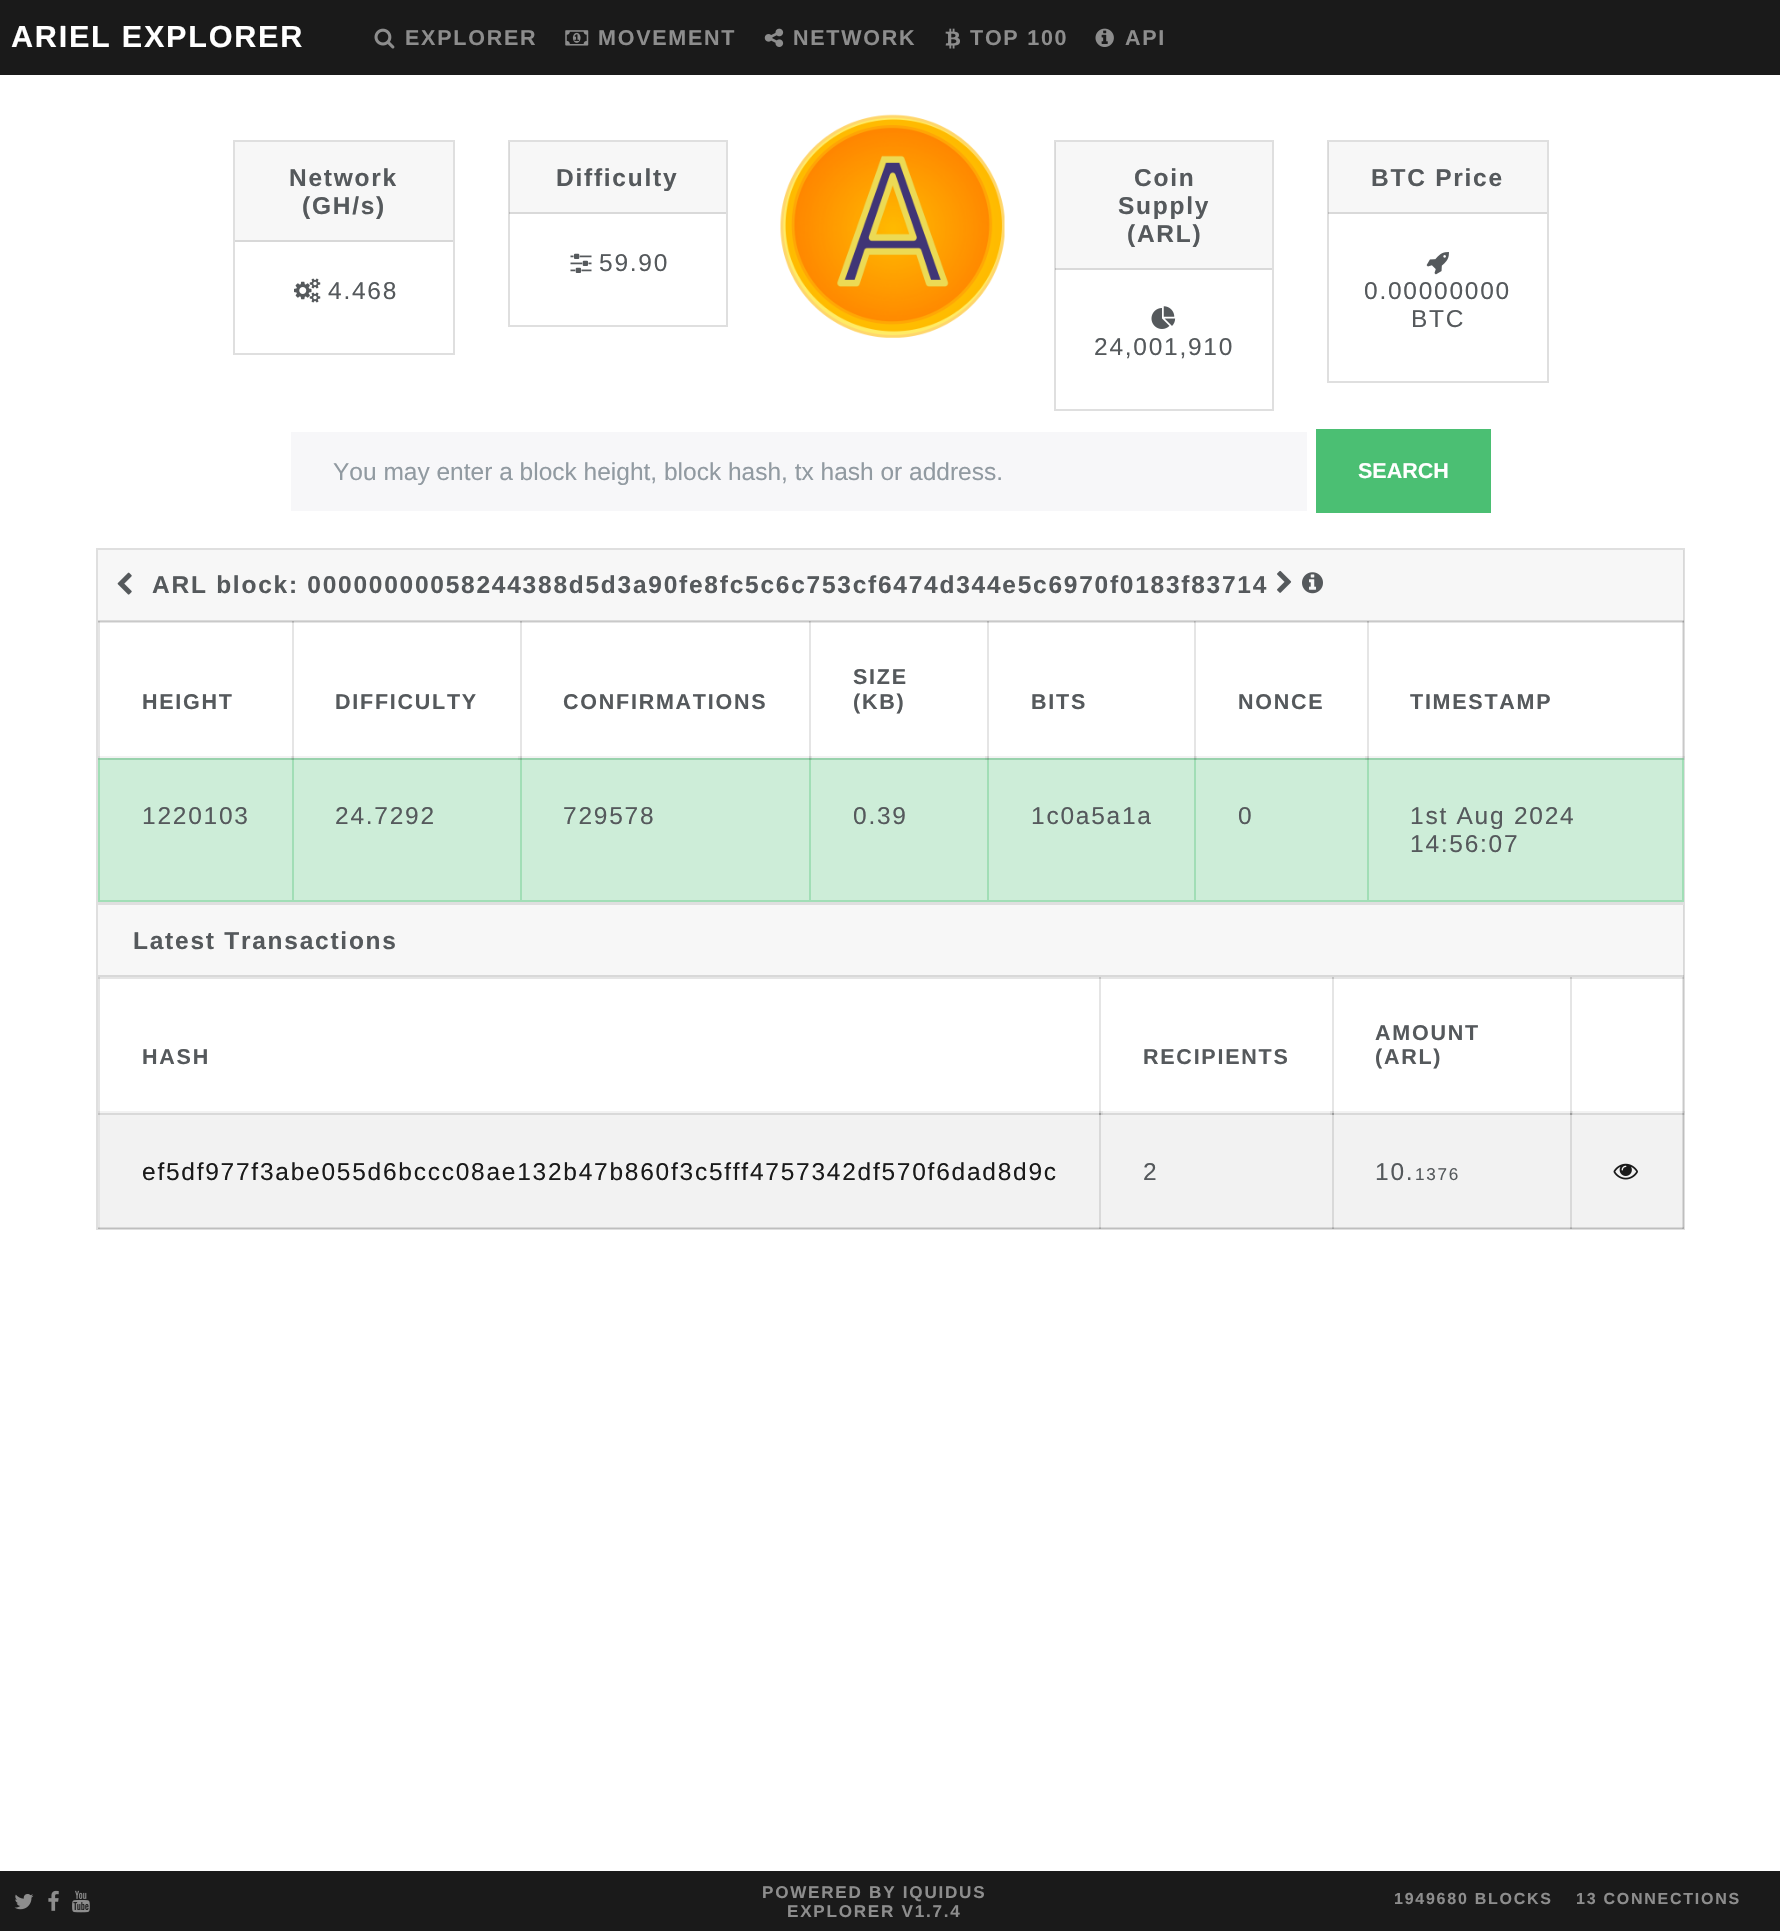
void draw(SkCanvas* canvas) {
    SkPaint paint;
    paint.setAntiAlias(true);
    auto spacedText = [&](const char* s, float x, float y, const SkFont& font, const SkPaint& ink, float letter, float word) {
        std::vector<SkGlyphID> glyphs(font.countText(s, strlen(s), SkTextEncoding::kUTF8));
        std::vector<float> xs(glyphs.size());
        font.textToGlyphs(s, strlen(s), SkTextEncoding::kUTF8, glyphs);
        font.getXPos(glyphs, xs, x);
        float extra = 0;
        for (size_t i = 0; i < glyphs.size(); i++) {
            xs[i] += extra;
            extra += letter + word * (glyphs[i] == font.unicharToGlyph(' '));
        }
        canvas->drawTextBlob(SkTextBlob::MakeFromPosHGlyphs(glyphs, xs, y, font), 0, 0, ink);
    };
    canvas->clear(0xFFFFFFFF);
    paint.setColor(0xFF1A1A1A);
    canvas->drawRect(SkRect::MakeXYWH(0, 0, 1780, 75), paint);
    SkFont font1(fontMgr->matchFamilyStyle("Liberation Sans", SkFontStyle::Bold()), 30.6f);
    font1.setSubpixel(true);
    paint.setColor(0xFFFFFFFF);
    spacedText("ARIEL EXPLORER", 11, 47, font1, paint, 1.75f, 0);
    canvas->drawImageRect(SkImages::DeferredFromEncodedData(SkData::MakeFromFileName("img1.png")), SkRect::MakeXYWH(374, 28, 21, 21), SkSamplingOptions());
    SkFont font2(fontMgr->matchFamilyStyle("Liberation Sans", SkFontStyle::Bold()), 21.5f);
    font2.setSubpixel(true);
    paint.setColor(0xFF8D8D8D);
    spacedText("EXPLORER", 405, 45, font2, paint, 1.75f, 0);
    canvas->drawImageRect(SkImages::DeferredFromEncodedData(SkData::MakeFromFileName("img2.png")), SkRect::MakeXYWH(565, 30, 24, 16), SkSamplingOptions());
    spacedText("MOVEMENT", 598, 45, font2, paint, 1.75f, 0);
    canvas->drawImageRect(SkImages::DeferredFromEncodedData(SkData::MakeFromFileName("img3.png")), SkRect::MakeXYWH(764, 28, 20, 19), SkSamplingOptions());
    spacedText("NETWORK", 793, 45, font2, paint, 1.75f, 0);
    canvas->drawImageRect(SkImages::DeferredFromEncodedData(SkData::MakeFromFileName("img4.png")), SkRect::MakeXYWH(945, 28, 15, 21), SkSamplingOptions());
    spacedText("TOP 100", 970, 45, font2, paint, 1.75f, 0);
    canvas->drawImageRect(SkImages::DeferredFromEncodedData(SkData::MakeFromFileName("img5.png")), SkRect::MakeXYWH(1095, 28, 19, 19), SkSamplingOptions());
    spacedText("API", 1125, 45, font2, paint, 1.75f, 0);
    paint.setStyle(SkPaint::kStroke_Style);
    paint.setStrokeWidth(2);
    paint.setColor(0xFFDFDFDF);
    canvas->drawRect(SkRect::MakeXYWH(234, 141, 220, 213), paint);
    paint.setStyle(SkPaint::kFill_Style);
    paint.setColor(0xFFF7F7F7);
    canvas->drawRect(SkRect::MakeXYWH(235, 142, 218, 98), paint);
    paint.setColor(0xFFD8D8D8);
    canvas->drawRect(SkRect::MakeXYWH(235, 240, 218, 2), paint);
    SkFont font3(fontMgr->matchFamilyStyle("Liberation Sans", SkFontStyle::Bold()), 24.5f);
    font3.setSubpixel(true);
    paint.setColor(0xFF55595C);
    spacedText("Network", 289, 186, font3, paint, 1.75f, 0);
    spacedText("(GH/s)", 302, 214, font3, paint, 1.75f, 0);
    canvas->drawImageRect(SkImages::DeferredFromEncodedData(SkData::MakeFromFileName("img6.png")), SkRect::MakeXYWH(294, 278, 27, 25), SkSamplingOptions());
    SkFont font4(fontMgr->matchFamilyStyle("Liberation Sans", SkFontStyle::Normal()), 24.5f);
    font4.setSubpixel(true);
    spacedText("4.468", 328, 299, font4, paint, 1.75f, 0);
    paint.setStyle(SkPaint::kStroke_Style);
    paint.setColor(0xFFDFDFDF);
    canvas->drawRect(SkRect::MakeXYWH(509, 141, 218, 185), paint);
    paint.setStyle(SkPaint::kFill_Style);
    paint.setColor(0x08000000);
    canvas->drawRect(SkRect::MakeXYWH(509, 142, 217, 72), paint);
    paint.setColor(0x1F000000);
    canvas->drawRect(SkRect::MakeXYWH(509, 212, 217, 2), paint);
    paint.setColor(0xFF55595C);
    spacedText("Difficulty", 556, 186, font3, paint, 1.75f, 0);
    canvas->drawImageRect(SkImages::DeferredFromEncodedData(SkData::MakeFromFileName("img7.png")), SkRect::MakeXYWH(570, 253, 22, 20), SkSamplingOptions());
    spacedText("59.90", 599, 271, font4, paint, 1.75f, 0);
    canvas->drawImageRect(SkImages::DeferredFromEncodedData(SkData::MakeFromFileName("img8.png")), SkRect::MakeXYWH(780, 114, 225, 224), SkSamplingOptions());
    paint.setStyle(SkPaint::kStroke_Style);
    paint.setColor(0xFFDFDFDF);
    canvas->drawRect(SkRect::MakeXYWH(1055, 141, 218, 269), paint);
    paint.setStyle(SkPaint::kFill_Style);
    paint.setColor(0x08000000);
    canvas->drawRect(SkRect::MakeXYWH(1055, 142, 217, 128), paint);
    paint.setColor(0x1F000000);
    canvas->drawRect(SkRect::MakeXYWH(1055, 268, 217, 2), paint);
    paint.setColor(0xFF55595C);
    spacedText("Coin", 1134, 186, font3, paint, 1.75f, 0);
    spacedText("Supply", 1118, 214, font3, paint, 1.75f, 0);
    spacedText("(ARL)", 1127, 242, font3, paint, 1.75f, 0);
    canvas->drawImageRect(SkImages::DeferredFromEncodedData(SkData::MakeFromFileName("img9.png")), SkRect::MakeXYWH(1151, 306, 25, 23), SkSamplingOptions());
    spacedText("24,001,910", 1094, 355, font4, paint, 1.75f, 0);
    paint.setStyle(SkPaint::kStroke_Style);
    paint.setColor(0xFFDFDFDF);
    canvas->drawRect(SkRect::MakeXYWH(1328, 141, 220, 241), paint);
    paint.setStyle(SkPaint::kFill_Style);
    paint.setColor(0x08000000);
    canvas->drawRect(SkRect::MakeXYWH(1328, 142, 219, 72), paint);
    paint.setColor(0x1F000000);
    canvas->drawRect(SkRect::MakeXYWH(1328, 212, 219, 2), paint);
    paint.setColor(0xFF55595C);
    spacedText("BTC Price", 1371, 186, font3, paint, 1.75f, 0);
    canvas->drawImageRect(SkImages::DeferredFromEncodedData(SkData::MakeFromFileName("img10.png")), SkRect::MakeXYWH(1426, 252, 23, 23), SkSamplingOptions());
    spacedText("0.00000000", 1364, 299, font4, paint, 1.75f, 0);
    spacedText("BTC", 1411, 327, font4, paint, 1.75f, 0);
    paint.setColor(0xFFF7F7F9);
    canvas->drawRect(SkRect::MakeXYWH(291, 432, 1016, 79), paint);
    paint.setColor(0xFF919AA1);
    canvas->drawString("You may enter a block height, block hash, tx hash or address.", 333, 480, font4, paint);
    paint.setColor(0xFF4BBF73);
    canvas->drawRect(SkRect::MakeXYWH(1316, 429, 175, 84), paint);
    paint.setColor(0xFFFFFFFF);
    canvas->drawString("SEARCH", 1358, 478, font2, paint);
    paint.setStyle(SkPaint::kStroke_Style);
    paint.setColor(0xFFDFDFDF);
    canvas->drawRect(SkRect::MakeXYWH(97, 549, 1587, 353), paint);
    paint.setStyle(SkPaint::kFill_Style);
    paint.setColor(0x08000000);
    canvas->drawRect(SkRect::MakeXYWH(98, 550, 1586, 71), paint);
    paint.setColor(0x1F000000);
    canvas->drawRect(SkRect::MakeXYWH(98, 620, 1586, 2), paint);
    canvas->drawImageRect(SkImages::DeferredFromEncodedData(SkData::MakeFromFileName("img11.png")), SkRect::MakeXYWH(117, 572, 15, 23), SkSamplingOptions());
    paint.setColor(0xFF55595C);
    spacedText("ARL block: 00000000058244388d5d3a90fe8fc5c6c753cf6474d344e5c6970f0183f83714", 152, 593, font3, paint, 1.75f, 0);
    canvas->drawImageRect(SkImages::DeferredFromEncodedData(SkData::MakeFromFileName("img12.png")), SkRect::MakeXYWH(1277, 570, 15, 23), SkSamplingOptions());
    canvas->drawImageRect(SkImages::DeferredFromEncodedData(SkData::MakeFromFileName("img13.png")), SkRect::MakeXYWH(1302, 572, 21, 22), SkSamplingOptions());
    paint.setColor(0x0D000000);
    canvas->drawRect(SkRect::MakeXYWH(98, 621, 1586, 2), paint);
    canvas->drawRect(SkRect::MakeXYWH(1682, 621, 2, 137), paint);
    canvas->drawRect(SkRect::MakeXYWH(98, 621, 2, 137), paint);
    canvas->drawRect(SkRect::MakeXYWH(1367, 621, 317, 2), paint);
    paint.setColor(0xFFA1DEB6);
    canvas->drawRect(SkRect::MakeXYWH(1367, 758, 317, 2), paint);
    paint.setColor(0xFFCDEDD8);
    canvas->drawRect(SkRect::MakeXYWH(100, 760, 1582, 140), paint);
    paint.setColor(0xFFA1DEB6);
    canvas->drawRect(SkRect::MakeXYWH(1682, 758, 2, 143), paint);
    canvas->drawRect(SkRect::MakeXYWH(1367, 900, 317, 2), paint);
    canvas->drawRect(SkRect::MakeXYWH(1367, 758, 2, 143), paint);
    canvas->drawRect(SkRect::MakeXYWH(1194, 758, 175, 2), paint);
    paint.setColor(0x0D000000);
    canvas->drawRect(SkRect::MakeXYWH(1367, 621, 2, 139), paint);
    canvas->drawRect(SkRect::MakeXYWH(1194, 621, 175, 2), paint);
    paint.setColor(0xFFA1DEB6);
    canvas->drawRect(SkRect::MakeXYWH(1194, 900, 175, 2), paint);
    canvas->drawRect(SkRect::MakeXYWH(1194, 758, 2, 143), paint);
    canvas->drawRect(SkRect::MakeXYWH(987, 758, 208, 2), paint);
    paint.setColor(0x0D000000);
    canvas->drawRect(SkRect::MakeXYWH(1194, 621, 2, 139), paint);
    canvas->drawRect(SkRect::MakeXYWH(987, 621, 208, 2), paint);
    paint.setColor(0xFFA1DEB6);
    canvas->drawRect(SkRect::MakeXYWH(987, 900, 208, 2), paint);
    canvas->drawRect(SkRect::MakeXYWH(987, 758, 2, 143), paint);
    canvas->drawRect(SkRect::MakeXYWH(809, 758, 180, 2), paint);
    paint.setColor(0x0D000000);
    canvas->drawRect(SkRect::MakeXYWH(987, 621, 2, 139), paint);
    canvas->drawRect(SkRect::MakeXYWH(809, 621, 180, 2), paint);
    paint.setColor(0xFFA1DEB6);
    canvas->drawRect(SkRect::MakeXYWH(809, 900, 180, 2), paint);
    canvas->drawRect(SkRect::MakeXYWH(809, 758, 2, 143), paint);
    canvas->drawRect(SkRect::MakeXYWH(520, 758, 290, 2), paint);
    paint.setColor(0x0D000000);
    canvas->drawRect(SkRect::MakeXYWH(809, 621, 2, 139), paint);
    canvas->drawRect(SkRect::MakeXYWH(520, 621, 290, 2), paint);
    paint.setColor(0xFFA1DEB6);
    canvas->drawRect(SkRect::MakeXYWH(520, 900, 290, 2), paint);
    canvas->drawRect(SkRect::MakeXYWH(520, 758, 2, 143), paint);
    canvas->drawRect(SkRect::MakeXYWH(292, 758, 230, 2), paint);
    paint.setColor(0x0D000000);
    canvas->drawRect(SkRect::MakeXYWH(520, 621, 2, 139), paint);
    canvas->drawRect(SkRect::MakeXYWH(292, 621, 230, 2), paint);
    paint.setColor(0xFFA1DEB6);
    canvas->drawRect(SkRect::MakeXYWH(292, 900, 230, 2), paint);
    canvas->drawRect(SkRect::MakeXYWH(292, 758, 2, 143), paint);
    canvas->drawRect(SkRect::MakeXYWH(98, 758, 196, 2), paint);
    paint.setColor(0x0D000000);
    canvas->drawRect(SkRect::MakeXYWH(292, 621, 2, 139), paint);
    canvas->drawRect(SkRect::MakeXYWH(98, 621, 196, 2), paint);
    canvas->drawRect(SkRect::MakeXYWH(292, 621, 2, 139), paint);
    paint.setColor(0xFFA1DEB6);
    canvas->drawRect(SkRect::MakeXYWH(98, 900, 196, 2), paint);
    canvas->drawRect(SkRect::MakeXYWH(98, 758, 2, 143), paint);
    paint.setColor(0x0D000000);
    canvas->drawRect(SkRect::MakeXYWH(98, 621, 2, 139), paint);
    canvas->drawRect(SkRect::MakeXYWH(520, 621, 2, 139), paint);
    canvas->drawRect(SkRect::MakeXYWH(809, 621, 2, 139), paint);
    canvas->drawRect(SkRect::MakeXYWH(987, 621, 2, 139), paint);
    canvas->drawRect(SkRect::MakeXYWH(1194, 621, 2, 139), paint);
    canvas->drawRect(SkRect::MakeXYWH(1367, 621, 2, 139), paint);
    canvas->drawRect(SkRect::MakeXYWH(1682, 621, 2, 139), paint);
    canvas->drawRect(SkRect::MakeXYWH(1365, 756, 320, 4), paint);
    canvas->drawRect(SkRect::MakeXYWH(1194, 756, 175, 4), paint);
    canvas->drawRect(SkRect::MakeXYWH(985, 756, 212, 4), paint);
    canvas->drawRect(SkRect::MakeXYWH(809, 756, 180, 4), paint);
    canvas->drawRect(SkRect::MakeXYWH(518, 756, 294, 4), paint);
    canvas->drawRect(SkRect::MakeXYWH(291, 756, 231, 4), paint);
    canvas->drawRect(SkRect::MakeXYWH(98, 756, 196, 4), paint);
    paint.setColor(0xFF55595C);
    spacedText("HEIGHT", 142, 709, font2, paint, 1.75f, 0);
    spacedText("DIFFICULTY", 335, 709, font2, paint, 1.75f, 0);
    spacedText("CONFIRMATIONS", 563, 709, font2, paint, 1.75f, 0);
    spacedText("SIZE", 853, 684, font2, paint, 1.75f, 0);
    spacedText("(KB)", 853, 709, font2, paint, 1.75f, 0);
    spacedText("BITS", 1031, 709, font2, paint, 1.75f, 0);
    spacedText("NONCE", 1238, 709, font2, paint, 1.75f, 0);
    spacedText("TIMESTAMP", 1410, 709, font2, paint, 1.75f, 0);
    spacedText("1220103", 142, 824, font4, paint, 1.75f, 0);
    spacedText("24.7292", 335, 824, font4, paint, 1.75f, 0);
    spacedText("729578", 563, 824, font4, paint, 1.75f, 0);
    spacedText("0.39", 853, 824, font4, paint, 1.75f, 0);
    spacedText("1c0a5a1a", 1031, 824, font4, paint, 1.75f, 0);
    spacedText("0", 1238, 824, font4, paint, 1.75f, 0);
    spacedText("1st Aug 2024", 1410, 824, font4, paint, 1.75f, 0);
    spacedText("14:56:07", 1410, 852, font4, paint, 1.75f, 0);
    paint.setStyle(SkPaint::kStroke_Style);
    paint.setColor(0xFFDFDFDF);
    canvas->drawRect(SkRect::MakeXYWH(97, 904, 1587, 325), paint);
    paint.setStyle(SkPaint::kFill_Style);
    paint.setColor(0x08000000);
    canvas->drawRect(SkRect::MakeXYWH(98, 905, 1586, 72), paint);
    paint.setColor(0x1F000000);
    canvas->drawRect(SkRect::MakeXYWH(98, 975, 1586, 2), paint);
    paint.setColor(0xFF55595C);
    spacedText("Latest Transactions", 133, 949, font3, paint, 1.75f, 0);
    paint.setColor(0x0D000000);
    canvas->drawRect(SkRect::MakeXYWH(98, 977, 1586, 2), paint);
    canvas->drawRect(SkRect::MakeXYWH(100, 1113, 1584, 116), paint);
    canvas->drawRect(SkRect::MakeXYWH(1682, 977, 2, 252), paint);
    canvas->drawRect(SkRect::MakeXYWH(98, 1227, 1586, 2), paint);
    canvas->drawRect(SkRect::MakeXYWH(98, 977, 2, 252), paint);
    canvas->drawRect(SkRect::MakeXYWH(1570, 977, 114, 2), paint);
    canvas->drawRect(SkRect::MakeXYWH(1570, 1113, 114, 2), paint);
    canvas->drawRect(SkRect::MakeXYWH(1682, 1113, 2, 116), paint);
    canvas->drawRect(SkRect::MakeXYWH(1570, 1227, 114, 2), paint);
    canvas->drawRect(SkRect::MakeXYWH(1570, 1113, 2, 116), paint);
    canvas->drawRect(SkRect::MakeXYWH(1332, 1113, 240, 2), paint);
    canvas->drawRect(SkRect::MakeXYWH(1570, 1113, 2, 116), paint);
    canvas->drawRect(SkRect::MakeXYWH(1570, 977, 2, 138), paint);
    canvas->drawRect(SkRect::MakeXYWH(1332, 977, 240, 2), paint);
    canvas->drawRect(SkRect::MakeXYWH(1332, 1227, 240, 2), paint);
    canvas->drawRect(SkRect::MakeXYWH(1332, 1113, 2, 116), paint);
    canvas->drawRect(SkRect::MakeXYWH(1099, 1113, 235, 2), paint);
    canvas->drawRect(SkRect::MakeXYWH(1332, 1113, 2, 116), paint);
    canvas->drawRect(SkRect::MakeXYWH(1332, 977, 2, 138), paint);
    canvas->drawRect(SkRect::MakeXYWH(1099, 977, 235, 2), paint);
    canvas->drawRect(SkRect::MakeXYWH(1099, 1227, 235, 2), paint);
    canvas->drawRect(SkRect::MakeXYWH(1099, 1113, 2, 116), paint);
    canvas->drawRect(SkRect::MakeXYWH(98, 1113, 1003, 2), paint);
    canvas->drawRect(SkRect::MakeXYWH(1099, 1113, 2, 116), paint);
    canvas->drawRect(SkRect::MakeXYWH(1099, 977, 2, 138), paint);
    canvas->drawRect(SkRect::MakeXYWH(98, 977, 1003, 2), paint);
    canvas->drawRect(SkRect::MakeXYWH(1099, 977, 2, 138), paint);
    canvas->drawRect(SkRect::MakeXYWH(98, 1227, 1003, 2), paint);
    canvas->drawRect(SkRect::MakeXYWH(98, 1113, 2, 116), paint);
    canvas->drawRect(SkRect::MakeXYWH(98, 977, 2, 138), paint);
    canvas->drawRect(SkRect::MakeXYWH(1332, 977, 2, 138), paint);
    canvas->drawRect(SkRect::MakeXYWH(1570, 977, 2, 138), paint);
    canvas->drawRect(SkRect::MakeXYWH(1682, 977, 2, 138), paint);
    canvas->drawRect(SkRect::MakeXYWH(1570, 1111, 115, 4), paint);
    canvas->drawRect(SkRect::MakeXYWH(1330, 1111, 243, 4), paint);
    canvas->drawRect(SkRect::MakeXYWH(1099, 1111, 235, 4), paint);
    canvas->drawRect(SkRect::MakeXYWH(98, 1111, 1005, 4), paint);
    paint.setColor(0xFF55595C);
    spacedText("HASH", 142, 1064, font2, paint, 1.75f, 0);
    spacedText("RECIPIENTS", 1143, 1064, font2, paint, 1.75f, 0);
    spacedText("AMOUNT", 1375, 1040, font2, paint, 1.75f, 0);
    spacedText("(ARL)", 1375, 1064, font2, paint, 1.75f, 0);
    paint.setColor(0xFF1A1A1A);
    spacedText("ef5df977f3abe055d6bccc08ae132b47b860f3c5fff4757342df570f6dad8d9c", 142, 1180, font4, paint, 1.75f, 0);
    paint.setColor(0xFF55595C);
    spacedText("2", 1143, 1180, font4, paint, 1.75f, 0);
    spacedText("10.", 1375, 1180, font4, paint, 1.75f, 0);
    SkFont font5(fontMgr->matchFamilyStyle("Liberation Sans", SkFontStyle::Normal()), 17.1f);
    font5.setSubpixel(true);
    spacedText("1376", 1415, 1180, font5, paint, 1.75f, 0);
    canvas->drawImageRect(SkImages::DeferredFromEncodedData(SkData::MakeFromFileName("img14.png")), SkRect::MakeXYWH(1613, 1163, 25, 17), SkSamplingOptions());
    paint.setColor(0xFF1A1A1A);
    canvas->drawRect(SkRect::MakeXYWH(0, 1871, 1780, 60), paint);
    canvas->drawImageRect(SkImages::DeferredFromEncodedData(SkData::MakeFromFileName("img15.png")), SkRect::MakeXYWH(14, 1894, 20, 16), SkSamplingOptions());
    canvas->drawImageRect(SkImages::DeferredFromEncodedData(SkData::MakeFromFileName("img16.png")), SkRect::MakeXYWH(48, 1890, 11, 21), SkSamplingOptions());
    canvas->drawImageRect(SkImages::DeferredFromEncodedData(SkData::MakeFromFileName("img17.png")), SkRect::MakeXYWH(72, 1890, 18, 23), SkSamplingOptions());
    SkFont font6(fontMgr->matchFamilyStyle("Liberation Sans", SkFontStyle::Bold()), 17.1f);
    font6.setSubpixel(true);
    paint.setColor(0xFF8D8D8D);
    spacedText("POWERED BY IQUIDUS", 762, 1898, font6, paint, 1.75f, 0);
    spacedText("EXPLORER V1.7.4", 787, 1917, font6, paint, 1.75f, 0);
    SkFont font7(fontMgr->matchFamilyStyle("Liberation Sans", SkFontStyle::Bold()), 16);
    font7.setSubpixel(true);
    spacedText("1949680 BLOCKS", 1394, 1904, font7, paint, 1.75f, 0);
    spacedText("13 CONNECTIONS", 1576, 1904, font7, paint, 1.75f, 0);
}
